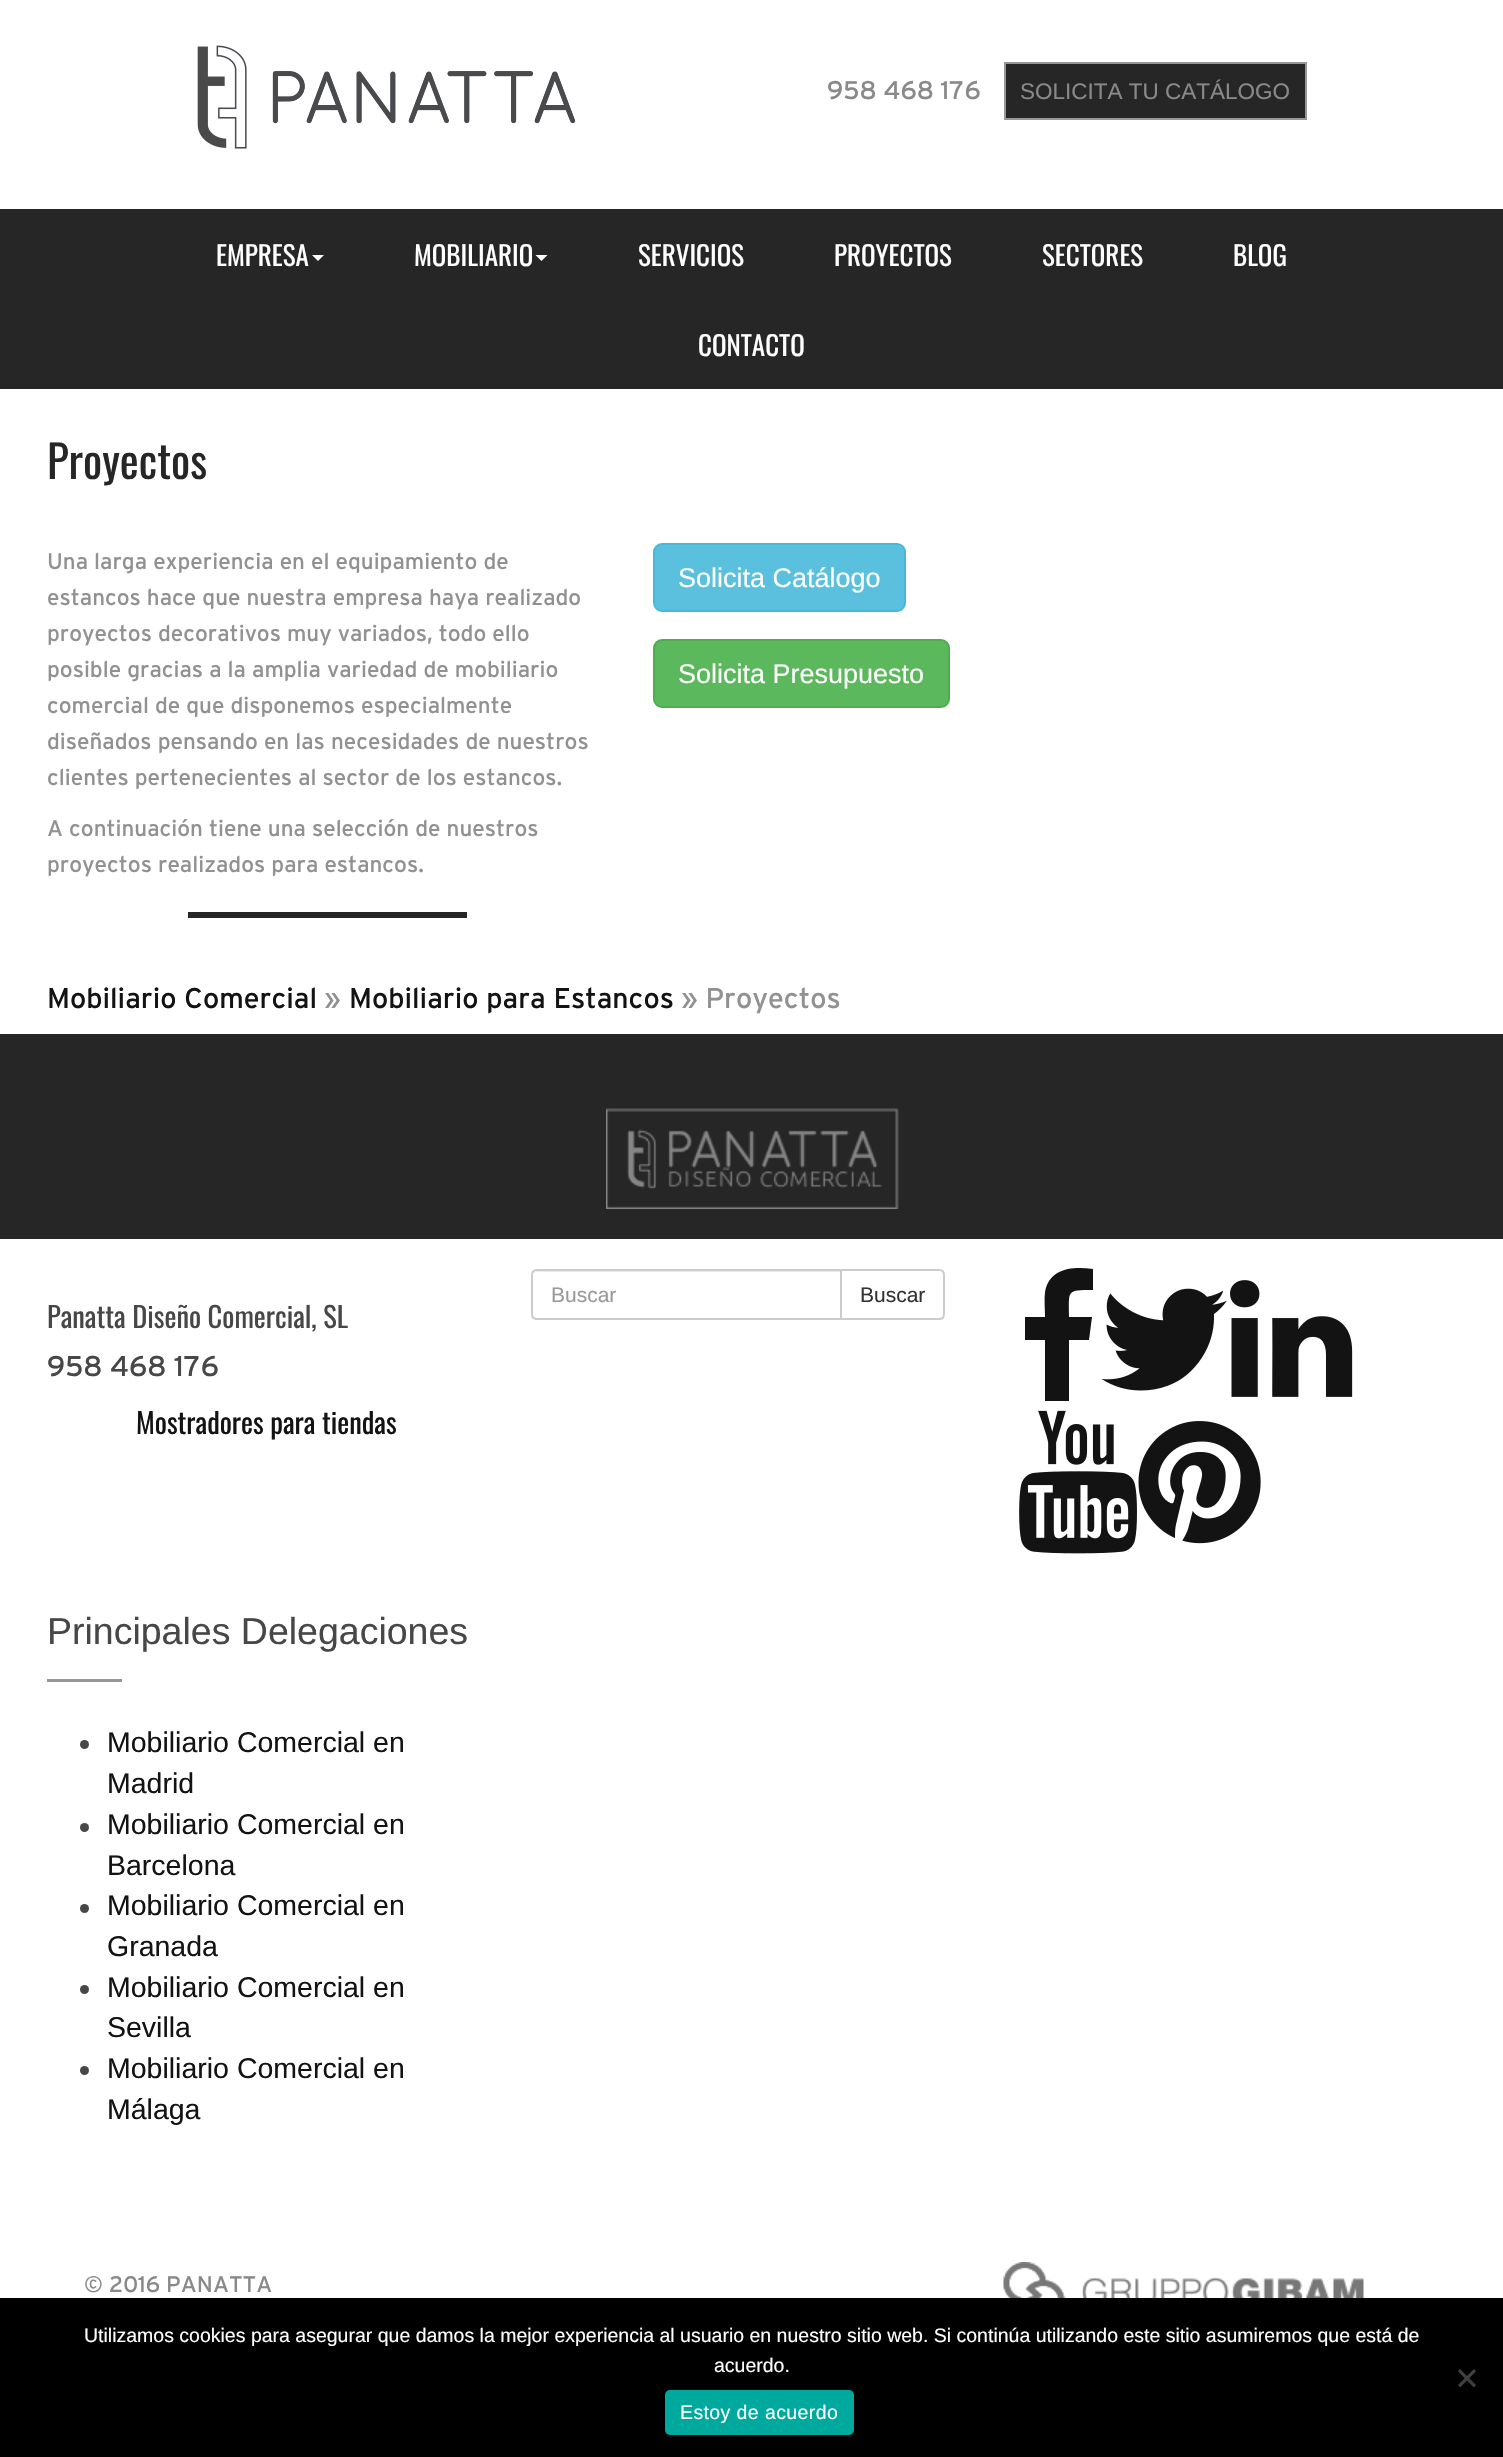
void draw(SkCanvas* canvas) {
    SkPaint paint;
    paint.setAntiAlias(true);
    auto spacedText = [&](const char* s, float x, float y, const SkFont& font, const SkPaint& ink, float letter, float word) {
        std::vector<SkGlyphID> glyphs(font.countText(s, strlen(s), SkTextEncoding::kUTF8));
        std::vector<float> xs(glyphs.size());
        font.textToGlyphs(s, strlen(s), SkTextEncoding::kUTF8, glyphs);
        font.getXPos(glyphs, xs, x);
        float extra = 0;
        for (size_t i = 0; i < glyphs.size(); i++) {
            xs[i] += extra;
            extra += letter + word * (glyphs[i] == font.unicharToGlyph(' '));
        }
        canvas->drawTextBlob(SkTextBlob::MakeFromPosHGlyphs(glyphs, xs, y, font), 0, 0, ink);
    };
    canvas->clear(0xFFFFFFFF);
    canvas->drawImageRect(SkImages::DeferredFromEncodedData(SkData::MakeFromFileName("img1.png")), SkRect::MakeXYWH(197, 45, 378, 104), SkSamplingOptions());
    SkFont font1(fontMgr->matchFamilyStyle("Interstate", SkFontStyle::Normal()), 25.5f);
    font1.setSubpixel(true);
    paint.setColor(0xFF8A8888);
    canvas->drawString("958 468 176", 827, 99, font1, paint);
    paint.setColor(0xFF262626);
    canvas->drawRect(SkRect::MakeXYWH(1005, 63, 301, 56), paint);
    paint.setStyle(SkPaint::kStroke_Style);
    paint.setStrokeWidth(2);
    paint.setColor(0xFF979797);
    canvas->drawRect(SkRect::MakeXYWH(1005, 63, 301, 56), paint);
    SkFont font2(fontMgr->matchFamilyStyle("Liberation Sans", SkFontStyle::Normal()), 22.5f);
    font2.setSubpixel(true);
    paint.setStyle(SkPaint::kFill_Style);
    paint.setColor(0xFF8A8888);
    canvas->drawString("SOLICITA TU CATÁLOGO", 1020, 99, font2, paint);
    paint.setColor(0xFF262626);
    canvas->drawRect(SkRect::MakeXYWH(0, 209, 1503, 180), paint);
    SkFont font3(fontMgr->matchFamilyStyle("Oswald", SkFontStyle::Normal()), 27);
    font3.setSubpixel(true);
    paint.setColor(0xFFFFFFFF);
    canvas->drawString("EMPRESA", 216, 266, font3, paint);
    canvas->drawPath(SkPathBuilder().moveTo(312, 255).lineTo(324, 255).lineTo(318, 261).close().detach(), paint);
    canvas->drawString("MOBILIARIO", 414, 266, font3, paint);
    canvas->drawPath(SkPathBuilder().moveTo(535.5f, 255).lineTo(547.5f, 255).lineTo(541.5f, 261).close().detach(), paint);
    canvas->drawString("SERVICIOS", 638, 266, font3, paint);
    canvas->drawString("PROYECTOS", 834, 266, font3, paint);
    canvas->drawString("SECTORES", 1042, 266, font3, paint);
    canvas->drawString("BLOG", 1233, 266, font3, paint);
    canvas->drawString("CONTACTO", 698, 356, font3, paint);
    SkFont font4(fontMgr->matchFamilyStyle("Oswald", SkFontStyle::Normal()), 45);
    font4.setSubpixel(true);
    paint.setColor(0xFF262626);
    canvas->drawString("Proyectos", 47, 479, font4, paint);
    SkFont font5(fontMgr->matchFamilyStyle("Interstate", SkFontStyle::Normal()), 22.5f);
    font5.setSubpixel(true);
    paint.setColor(0xFF919191);
    canvas->drawString("Una larga experiencia en el equipamiento de", 47, 569, font5, paint);
    canvas->drawString("estancos hace que nuestra empresa haya realizado", 47, 605, font5, paint);
    canvas->drawString("proyectos decorativos muy variados, todo ello", 47, 641, font5, paint);
    canvas->drawString("posible gracias a la amplia variedad de mobiliario", 47, 677, font5, paint);
    canvas->drawString("comercial de que disponemos especialmente", 47, 713, font5, paint);
    canvas->drawString("diseñados pensando en las necesidades de nuestros", 47, 749, font5, paint);
    canvas->drawString("clientes pertenecientes al sector de los estancos.", 47, 785, font5, paint);
    canvas->drawString("A continuación tiene una selección de nuestros", 47, 836, font5, paint);
    canvas->drawString("proyectos realizados para estancos.", 47, 872, font5, paint);
    paint.setColor(0xFF262626);
    canvas->drawRect(SkRect::MakeXYWH(188, 912, 279, 6), paint);
    paint.setColor(0xFF5BC0DE);
    canvas->drawRoundRect(SkRect::MakeXYWH(654, 544, 251, 67), 8, 8, paint);
    paint.setStyle(SkPaint::kStroke_Style);
    paint.setColor(0xFF46B8DA);
    canvas->drawRoundRect(SkRect::MakeXYWH(654, 544, 251, 67), 8, 8, paint);
    SkFont font6(fontMgr->matchFamilyStyle("Liberation Sans", SkFontStyle::Normal()), 27);
    font6.setSubpixel(true);
    paint.setStyle(SkPaint::kFill_Style);
    paint.setColor(0xFFFFFFFF);
    canvas->drawString("Solicita Catálogo", 678, 587, font6, paint);
    paint.setColor(0xFF5CB85C);
    canvas->drawRoundRect(SkRect::MakeXYWH(654, 640, 295, 67), 8, 8, paint);
    paint.setStyle(SkPaint::kStroke_Style);
    paint.setColor(0xFF4CAE4C);
    canvas->drawRoundRect(SkRect::MakeXYWH(654, 640, 295, 67), 8, 8, paint);
    paint.setStyle(SkPaint::kFill_Style);
    paint.setColor(0xFFFFFFFF);
    canvas->drawString("Solicita Presupuesto", 678, 683, font6, paint);
    SkFont font7(fontMgr->matchFamilyStyle("Interstate", SkFontStyle::Normal()), 28.5f);
    font7.setSubpixel(true);
    paint.setColor(0xFF131313);
    canvas->drawString("Mobiliario Comercial", 47, 1008, font7, paint);
    paint.setColor(0xFF919191);
    canvas->drawString("»", 324, 1008, font7, paint);
    paint.setColor(0xFF131313);
    canvas->drawString("Mobiliario para Estancos", 349, 1008, font7, paint);
    paint.setColor(0xFF919191);
    canvas->drawString("» Proyectos", 681, 1008, font7, paint);
    paint.setColor(0xFF262626);
    canvas->drawRect(SkRect::MakeXYWH(0, 1034, 1503, 205), paint);
    canvas->drawImageRect(SkImages::DeferredFromEncodedData(SkData::MakeFromFileName("img2.png")), SkRect::MakeXYWH(606, 1108, 293, 101), SkSamplingOptions());
    paint.setColor(0xFFECECEC);
    canvas->drawPath(SkPathBuilder().moveTo(537, 1272).lineTo(840, 1272).lineTo(840, 1271).lineTo(538, 1271).cubicTo(536, 1271, 535, 1272, 534, 1273).close().detach(), paint);
    paint.setStyle(SkPaint::kStroke_Style);
    paint.setColor(0xFFCCCCCC);
    canvas->drawPath(SkPathBuilder().moveTo(537, 1270).lineTo(841, 1270).lineTo(841, 1319).lineTo(537, 1319).cubicTo(534, 1319, 532, 1317, 532, 1314).lineTo(532, 1275).cubicTo(532, 1272, 534, 1270, 537, 1270).close().detach(), paint);
    SkFont font8(fontMgr->matchFamilyStyle("Liberation Sans", SkFontStyle::Normal()), 21);
    font8.setSubpixel(true);
    paint.setStyle(SkPaint::kFill_Style);
    paint.setColor(0xFF999999);
    canvas->drawString("Buscar", 551, 1302, font8, paint);
    paint.setColor(0xFFFFFFFF);
    canvas->drawPath(SkPathBuilder().moveTo(841, 1270).lineTo(939, 1270).cubicTo(942, 1270, 944, 1272, 944, 1275).lineTo(944, 1314).cubicTo(944, 1317, 942, 1319, 939, 1319).lineTo(841, 1319).close().detach(), paint);
    paint.setStyle(SkPaint::kStroke_Style);
    paint.setColor(0xFFCCCCCC);
    canvas->drawPath(SkPathBuilder().moveTo(841, 1270).lineTo(939, 1270).cubicTo(942, 1270, 944, 1272, 944, 1275).lineTo(944, 1314).cubicTo(944, 1317, 942, 1319, 939, 1319).lineTo(841, 1319).close().detach(), paint);
    paint.setStyle(SkPaint::kFill_Style);
    paint.setColor(0xFF333333);
    canvas->drawString("Buscar", 860, 1302, font8, paint);
    paint.setColor(0xFF131313);
    canvas->drawPath(SkPathBuilder().moveTo(1093, 1269).lineTo(1093, 1290).cubicTo(1066, 1290, 1069, 1290, 1069, 1317).lineTo(1092, 1317).lineTo(1089, 1340).lineTo(1069, 1340).lineTo(1069, 1401).lineTo(1045, 1401).lineTo(1045, 1340).lineTo(1025, 1340).lineTo(1025, 1317).lineTo(1045, 1317).cubicTo(1045, 1309, 1044, 1300, 1045, 1292).cubicTo(1049, 1268, 1073, 1266, 1093, 1269).close().detach(), paint);
    canvas->drawImageRect(SkImages::DeferredFromEncodedData(SkData::MakeFromFileName("img3.png")), SkRect::MakeXYWH(1101, 1288, 126, 103), SkSamplingOptions());
    canvas->drawImageRect(SkImages::DeferredFromEncodedData(SkData::MakeFromFileName("img4.png")), SkRect::MakeXYWH(1230, 1280, 123, 117), SkSamplingOptions());
    canvas->drawImageRect(SkImages::DeferredFromEncodedData(SkData::MakeFromFileName("img5.png")), SkRect::MakeXYWH(1019, 1410, 118, 144), SkSamplingOptions());
    canvas->drawImageRect(SkImages::DeferredFromEncodedData(SkData::MakeFromFileName("img6.png")), SkRect::MakeXYWH(1138, 1421, 123, 123), SkSamplingOptions());
    SkFont font9(fontMgr->matchFamilyStyle("Oswald", SkFontStyle::Normal()), 28.5f);
    font9.setSubpixel(true);
    paint.setColor(0xFF474747);
    canvas->drawString("Panatta Diseño Comercial, SL", 47, 1328, font9, paint);
    canvas->drawString("958 468 176", 47, 1376, font7, paint);
    paint.setColor(0xFF131313);
    canvas->drawString("Mostradores para tiendas", 136, 1434, font9, paint);
    SkFont font10(fontMgr->matchFamilyStyle("Liberation Sans", SkFontStyle::Normal()), 37.5f);
    font10.setSubpixel(true);
    paint.setColor(0xFF474747);
    canvas->drawString("Principales Delegaciones", 47, 1644, font10, paint);
    paint.setColor(0xFF979797);
    canvas->drawRect(SkRect::MakeXYWH(47, 1679, 75, 3), paint);
    paint.setColor(0xFF474747);
    canvas->drawCircle(84.5f, 1744.5f, 4.5f, paint);
    SkFont font11(fontMgr->matchFamilyStyle("Liberation Sans", SkFontStyle::Normal()), 28.5f);
    font11.setSubpixel(true);
    paint.setColor(0xFF131313);
    canvas->drawString("Mobiliario Comercial en", 107, 1752, font11, paint);
    canvas->drawString("Madrid", 107, 1793, font11, paint);
    paint.setColor(0xFF474747);
    canvas->drawCircle(84.5f, 1827.5f, 4.5f, paint);
    paint.setColor(0xFF131313);
    canvas->drawString("Mobiliario Comercial en", 107, 1834, font11, paint);
    canvas->drawString("Barcelona", 107, 1875, font11, paint);
    paint.setColor(0xFF474747);
    canvas->drawCircle(84.5f, 1908.5f, 4.5f, paint);
    paint.setColor(0xFF131313);
    canvas->drawString("Mobiliario Comercial en", 107, 1915, font11, paint);
    canvas->drawString("Granada", 107, 1956, font11, paint);
    paint.setColor(0xFF474747);
    canvas->drawCircle(84.5f, 1989.5f, 4.5f, paint);
    paint.setColor(0xFF131313);
    canvas->drawString("Mobiliario Comercial en", 107, 1997, font11, paint);
    canvas->drawString("Sevilla", 107, 2037, font11, paint);
    paint.setColor(0xFF474747);
    canvas->drawCircle(84.5f, 2070.5f, 4.5f, paint);
    paint.setColor(0xFF131313);
    canvas->drawString("Mobiliario Comercial en", 107, 2078, font11, paint);
    canvas->drawString("Málaga", 107, 2119, font11, paint);
    paint.setColor(0xFF8A8888);
    canvas->drawString("© 2016 PANATTA", 84, 2292, font5, paint);
    canvas->drawImageRect(SkImages::DeferredFromEncodedData(SkData::MakeFromFileName("img7.png")), SkRect::MakeXYWH(1003, 2262, 361, 36), SkSamplingOptions());
    paint.setColor(0xFF000000);
    canvas->drawRect(SkRect::MakeXYWH(0, 2298, 1503, 159), paint);
    SkFont font12(fontMgr->matchFamilyStyle("Liberation Sans", SkFontStyle::Normal()), 19.5f);
    font12.setSubpixel(true);
    paint.setColor(0xFFFFFFFF);
    canvas->drawString("Utilizamos cookies para asegurar que damos la mejor experiencia al usuario en nuestro sitio web. Si continúa utilizando este sitio asumiremos que está de", 84, 2342, font12, paint);
    canvas->drawString("acuerdo.", 714, 2372, font12, paint);
    paint.setColor(0xFF404040);
    canvas->drawPath(SkPathBuilder().moveTo(1474, 2369).lineTo(1476, 2371.5f).lineTo(1460, 2387.5f).lineTo(1458, 2385).close().detach(), paint);
    canvas->drawPath(SkPathBuilder().moveTo(1458, 2371.5f).lineTo(1460, 2369).lineTo(1476, 2385).lineTo(1474, 2387.5f).close().detach(), paint);
    paint.setColor(0xFF00A99D);
    canvas->drawRoundRect(SkRect::MakeXYWH(665, 2390, 189, 45), 5, 5, paint);
    paint.setColor(0xFFFFFFFF);
    spacedText("Estoy de acuerdo", 680, 2419, font12, paint, 0.4f, 0);
}
